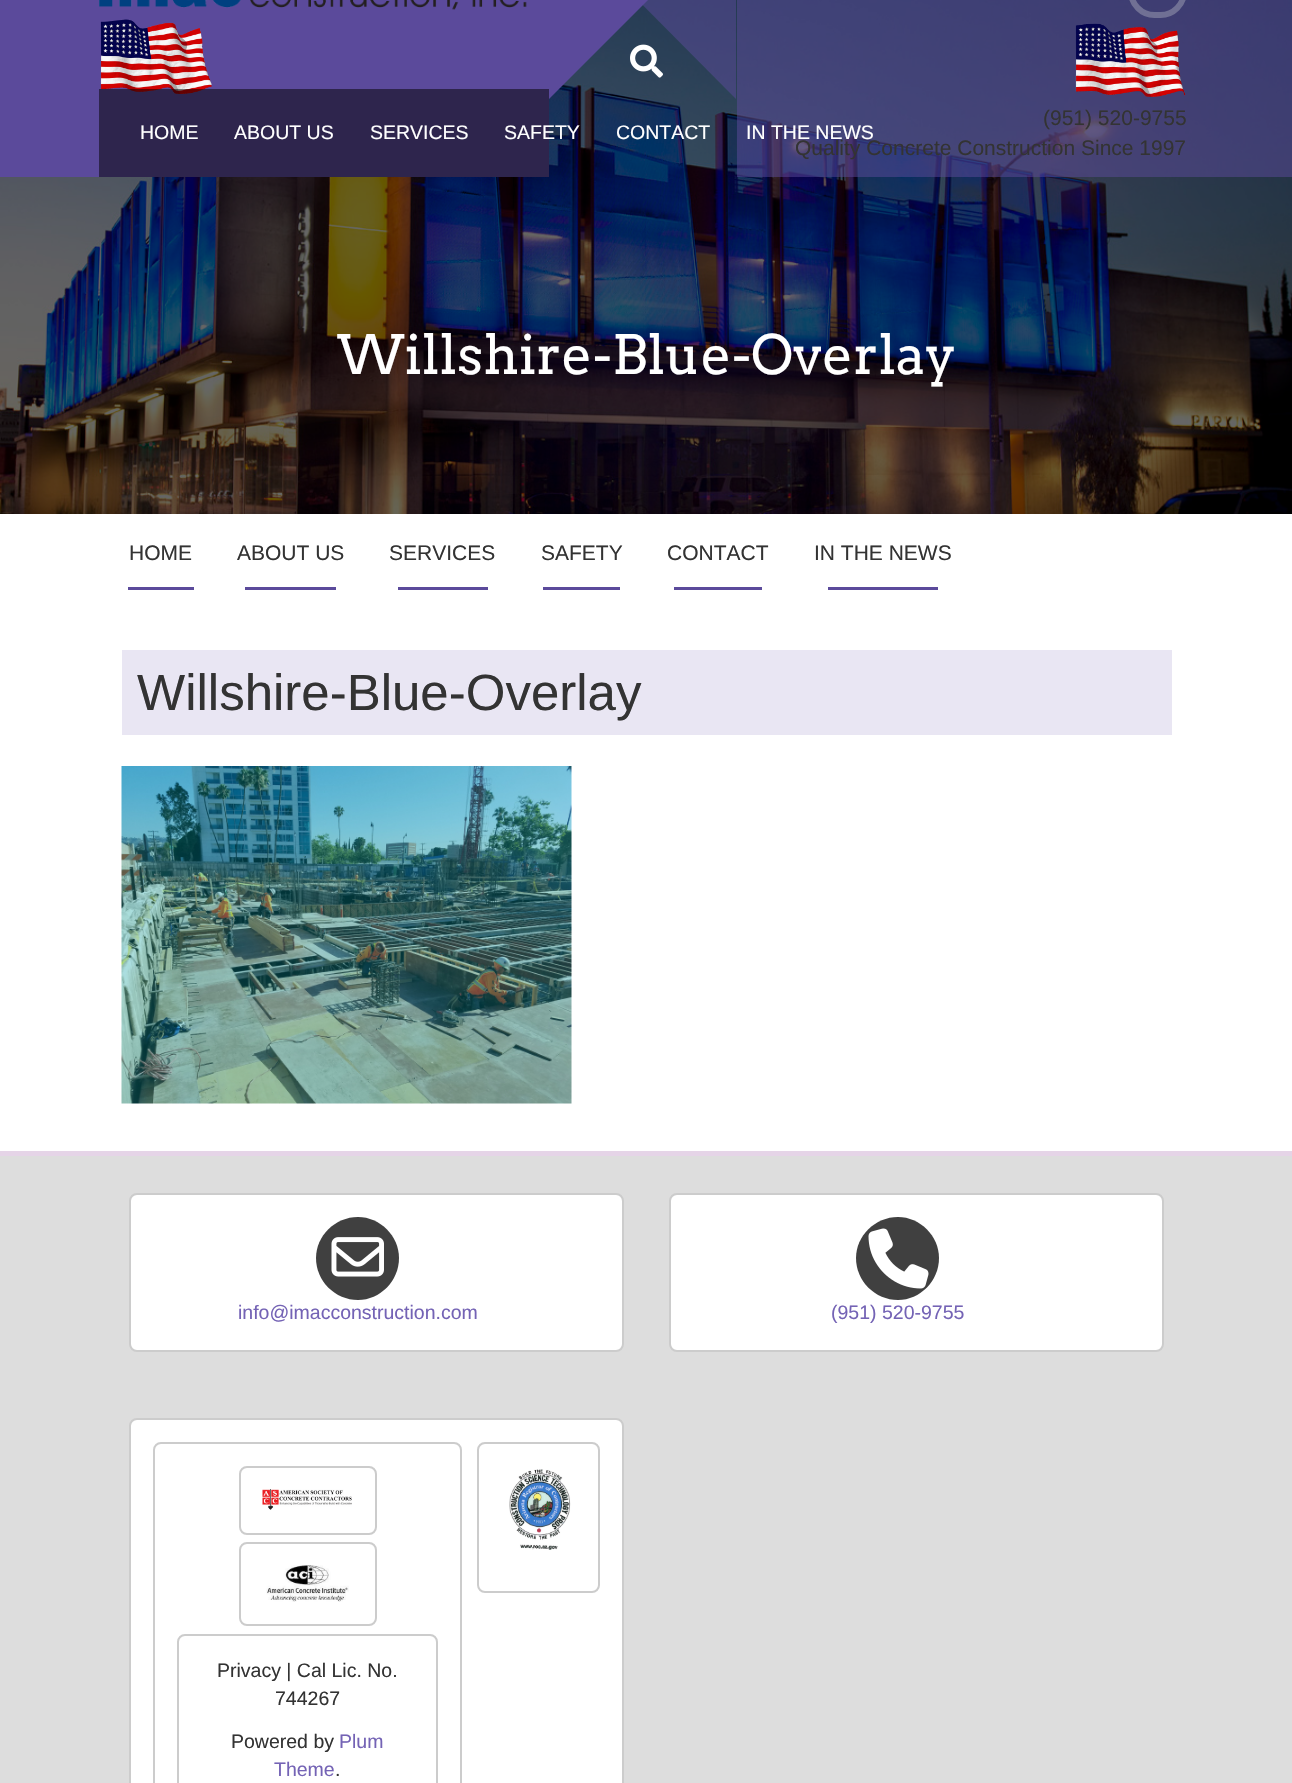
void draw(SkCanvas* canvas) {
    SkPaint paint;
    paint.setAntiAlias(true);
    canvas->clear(0xFFFFFFFF);
    canvas->drawImageRect(SkImages::DeferredFromEncodedData(SkData::MakeFromFileName("img1.png")), SkRect::MakeXYWH(0, 0, 1292, 514), SkSamplingOptions());
    paint.setColor(0x805B4A9B);
    canvas->drawPath(SkPathBuilder().moveTo(736, -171).lineTo(736, 99).lineTo(602, -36).close().detach(), paint);
    paint.setColor(0xFF5B4A9B);
    canvas->drawPath(SkPathBuilder().moveTo(549, 99).lineTo(549, -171).lineTo(684, -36).close().detach(), paint);
    canvas->drawImageRect(SkImages::DeferredFromEncodedData(SkData::MakeFromFileName("img2.png")), SkRect::MakeXYWH(630, 44, 33, 34), SkSamplingOptions());
    canvas->drawRect(SkRect::MakeXYWH(0, 0, 549, 177), paint);
    canvas->drawImageRect(SkImages::DeferredFromEncodedData(SkData::MakeFromFileName("img3.png")), SkRect::MakeXYWH(99, 0, 428, 10), SkSamplingOptions());
    canvas->drawImageRect(SkImages::DeferredFromEncodedData(SkData::MakeFromFileName("img4.png")), SkRect::MakeXYWH(100, 19, 112, 75), SkSamplingOptions());
    paint.setColor(0x80000000);
    canvas->drawRect(SkRect::MakeXYWH(99, 89, 450, 88), paint);
    SkFont font1(fontMgr->matchFamilyStyle("Liberation Sans", SkFontStyle::Normal()), 19.5f);
    font1.setSubpixel(true);
    paint.setColor(0xFFFFFFFF);
    canvas->drawString("HOME", 140, 139, font1, paint);
    canvas->drawString("ABOUT US", 234, 139, font1, paint);
    canvas->drawString("SERVICES", 370, 139, font1, paint);
    canvas->drawString("SAFETY", 504, 139, font1, paint);
    canvas->drawString("CONTACT", 616, 139, font1, paint);
    paint.setColor(0x805B4A9B);
    canvas->drawRect(SkRect::MakeXYWH(737, 0, 450, 177), paint);
    paint.setColor(0xFFFFFFFF);
    canvas->drawString("IN THE NEWS", 746, 139, font1, paint);
    paint.setStyle(SkPaint::kStroke_Style);
    paint.setStrokeWidth(6);
    paint.setColor(0xFF707094);
    canvas->drawRoundRect(SkRect::MakeXYWH(1131, -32, 53, 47), 26, 26, paint);
    canvas->drawImageRect(SkImages::DeferredFromEncodedData(SkData::MakeFromFileName("img5.png")), SkRect::MakeXYWH(1075, 23, 111, 74), SkSamplingOptions());
    paint.setStyle(SkPaint::kFill_Style);
    paint.setColor(0x805B4A9B);
    canvas->drawRect(SkRect::MakeXYWH(1187, 0, 105, 177), paint);
    SkFont font2(fontMgr->matchFamilyStyle("Liberation Sans", SkFontStyle::Normal()), 21);
    font2.setSubpixel(true);
    paint.setColor(0xFF333333);
    canvas->drawString("(951) 520-9755", 1043, 125, font2, paint);
    canvas->drawString("Quality Concrete Construction Since 1997", 795, 155, font2, paint);
    SkFont font3(fontMgr->matchFamilyStyle("Arvo", SkFontStyle::Normal()), 54);
    font3.setSubpixel(true);
    paint.setColor(0xFFFFFFFF);
    canvas->drawString("Willshire-Blue-Overlay", 337, 374, font3, paint);
    paint.setColor(0xFF333333);
    canvas->drawString("HOME", 129, 560, font2, paint);
    paint.setColor(0xFF5B4A9B);
    canvas->drawRect(SkRect::MakeXYWH(128, 587, 66, 3), paint);
    paint.setColor(0xFF333333);
    canvas->drawString("ABOUT US", 237, 560, font2, paint);
    paint.setColor(0xFF5B4A9B);
    canvas->drawRect(SkRect::MakeXYWH(245, 587, 91, 3), paint);
    paint.setColor(0xFF333333);
    canvas->drawString("SERVICES", 389, 560, font2, paint);
    paint.setColor(0xFF5B4A9B);
    canvas->drawRect(SkRect::MakeXYWH(398, 587, 90, 3), paint);
    paint.setColor(0xFF333333);
    canvas->drawString("SAFETY", 541, 560, font2, paint);
    paint.setColor(0xFF5B4A9B);
    canvas->drawRect(SkRect::MakeXYWH(543, 587, 77, 3), paint);
    paint.setColor(0xFF333333);
    canvas->drawString("CONTACT", 667, 560, font2, paint);
    paint.setColor(0xFF5B4A9B);
    canvas->drawRect(SkRect::MakeXYWH(674, 587, 88, 3), paint);
    paint.setColor(0xFF333333);
    canvas->drawString("IN THE NEWS", 814, 560, font2, paint);
    paint.setColor(0xFF5B4A9B);
    canvas->drawRect(SkRect::MakeXYWH(828, 587, 110, 3), paint);
    paint.setColor(0xFFE9E6F3);
    canvas->drawRect(SkRect::MakeXYWH(122, 650, 1050, 85), paint);
    SkFont font4(fontMgr->matchFamilyStyle("Liberation Sans", SkFontStyle::Normal()), 51);
    font4.setSubpixel(true);
    paint.setColor(0xFF333333);
    canvas->drawString("Willshire-Blue-Overlay", 137, 710, font4, paint);
    canvas->drawImageRect(SkImages::DeferredFromEncodedData(SkData::MakeFromFileName("img6.png")), SkRect::MakeXYWH(121, 766, 451, 338), SkSamplingOptions());
    paint.setColor(0xFFDDDDDD);
    canvas->drawRect(SkRect::MakeXYWH(0, 1156, 1292, 627), paint);
    paint.setColor(0xFFE5D4E7);
    canvas->drawRect(SkRect::MakeXYWH(0, 1151, 1292, 5), paint);
    paint.setColor(0xFFFFFFFF);
    canvas->drawRoundRect(SkRect::MakeXYWH(130, 1194, 493, 157), 7, 7, paint);
    paint.setStyle(SkPaint::kStroke_Style);
    paint.setStrokeWidth(2);
    paint.setColor(0xFFCCCCCC);
    canvas->drawRoundRect(SkRect::MakeXYWH(130, 1194, 493, 157), 7, 7, paint);
    paint.setStyle(SkPaint::kFill_Style);
    paint.setColor(0xFF404040);
    canvas->drawPath(SkPathBuilder().moveTo(399, 1258).cubicTo(399, 1281, 380, 1300, 358, 1300).cubicTo(335, 1300, 316, 1281, 316, 1258).cubicTo(316, 1236, 335, 1217, 358, 1217).cubicTo(380, 1217, 399, 1236, 399, 1258).close().detach(), paint);
    canvas->drawImageRect(SkImages::DeferredFromEncodedData(SkData::MakeFromFileName("img7.png")), SkRect::MakeXYWH(331, 1237, 53, 40), SkSamplingOptions());
    paint.setColor(0xFF7463B5);
    canvas->drawString("info@imacconstruction.com", 238, 1319, font1, paint);
    paint.setColor(0xFFFFFFFF);
    canvas->drawRoundRect(SkRect::MakeXYWH(670, 1194, 493, 157), 7, 7, paint);
    paint.setStyle(SkPaint::kStroke_Style);
    paint.setColor(0xFFCCCCCC);
    canvas->drawRoundRect(SkRect::MakeXYWH(670, 1194, 493, 157), 7, 7, paint);
    paint.setStyle(SkPaint::kFill_Style);
    paint.setColor(0xFF404040);
    canvas->drawPath(SkPathBuilder().moveTo(939, 1258).cubicTo(939, 1281, 920, 1300, 898, 1300).cubicTo(875, 1300, 856, 1281, 856, 1258).cubicTo(856, 1236, 875, 1217, 898, 1217).cubicTo(920, 1217, 939, 1236, 939, 1258).close().detach(), paint);
    canvas->drawImageRect(SkImages::DeferredFromEncodedData(SkData::MakeFromFileName("img8.png")), SkRect::MakeXYWH(868, 1228, 61, 61), SkSamplingOptions());
    paint.setColor(0xFF7463B5);
    canvas->drawString("(951) 520-9755", 831, 1319, font1, paint);
    paint.setColor(0xFFFFFFFF);
    canvas->drawRoundRect(SkRect::MakeXYWH(130, 1419, 493, 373), 7, 7, paint);
    paint.setStyle(SkPaint::kStroke_Style);
    paint.setColor(0xFFCCCCCC);
    canvas->drawRoundRect(SkRect::MakeXYWH(130, 1419, 493, 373), 7, 7, paint);
    canvas->drawRoundRect(SkRect::MakeXYWH(478, 1443, 121, 149), 7, 7, paint);
    canvas->drawImageRect(SkImages::DeferredFromEncodedData(SkData::MakeFromFileName("img9.png")), SkRect::MakeXYWH(509, 1469, 62, 81), SkSamplingOptions());
    canvas->drawRoundRect(SkRect::MakeXYWH(154, 1443, 307, 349), 7, 7, paint);
    canvas->drawRoundRect(SkRect::MakeXYWH(240, 1467, 136, 67), 7, 7, paint);
    canvas->drawImageRect(SkImages::DeferredFromEncodedData(SkData::MakeFromFileName("img10.png")), SkRect::MakeXYWH(262, 1489, 90, 21), SkSamplingOptions());
    canvas->drawRoundRect(SkRect::MakeXYWH(240, 1543, 136, 82), 7, 7, paint);
    canvas->drawImageRect(SkImages::DeferredFromEncodedData(SkData::MakeFromFileName("img11.png")), SkRect::MakeXYWH(266, 1565, 83, 37), SkSamplingOptions());
    canvas->drawRoundRect(SkRect::MakeXYWH(178, 1635, 259, 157), 7, 7, paint);
    paint.setStyle(SkPaint::kFill_Style);
    paint.setColor(0xFF333333);
    canvas->drawString("Privacy | Cal Lic. No.", 217, 1677, font1, paint);
    canvas->drawString("744267", 275, 1705, font1, paint);
    canvas->drawString("Powered by", 231, 1748, font1, paint);
    paint.setColor(0xFF7463B5);
    canvas->drawString("Plum", 339, 1748, font1, paint);
    canvas->drawString("Theme", 274, 1776, font1, paint);
    paint.setColor(0xFF333333);
    canvas->drawString(".", 335, 1776, font1, paint);
}
